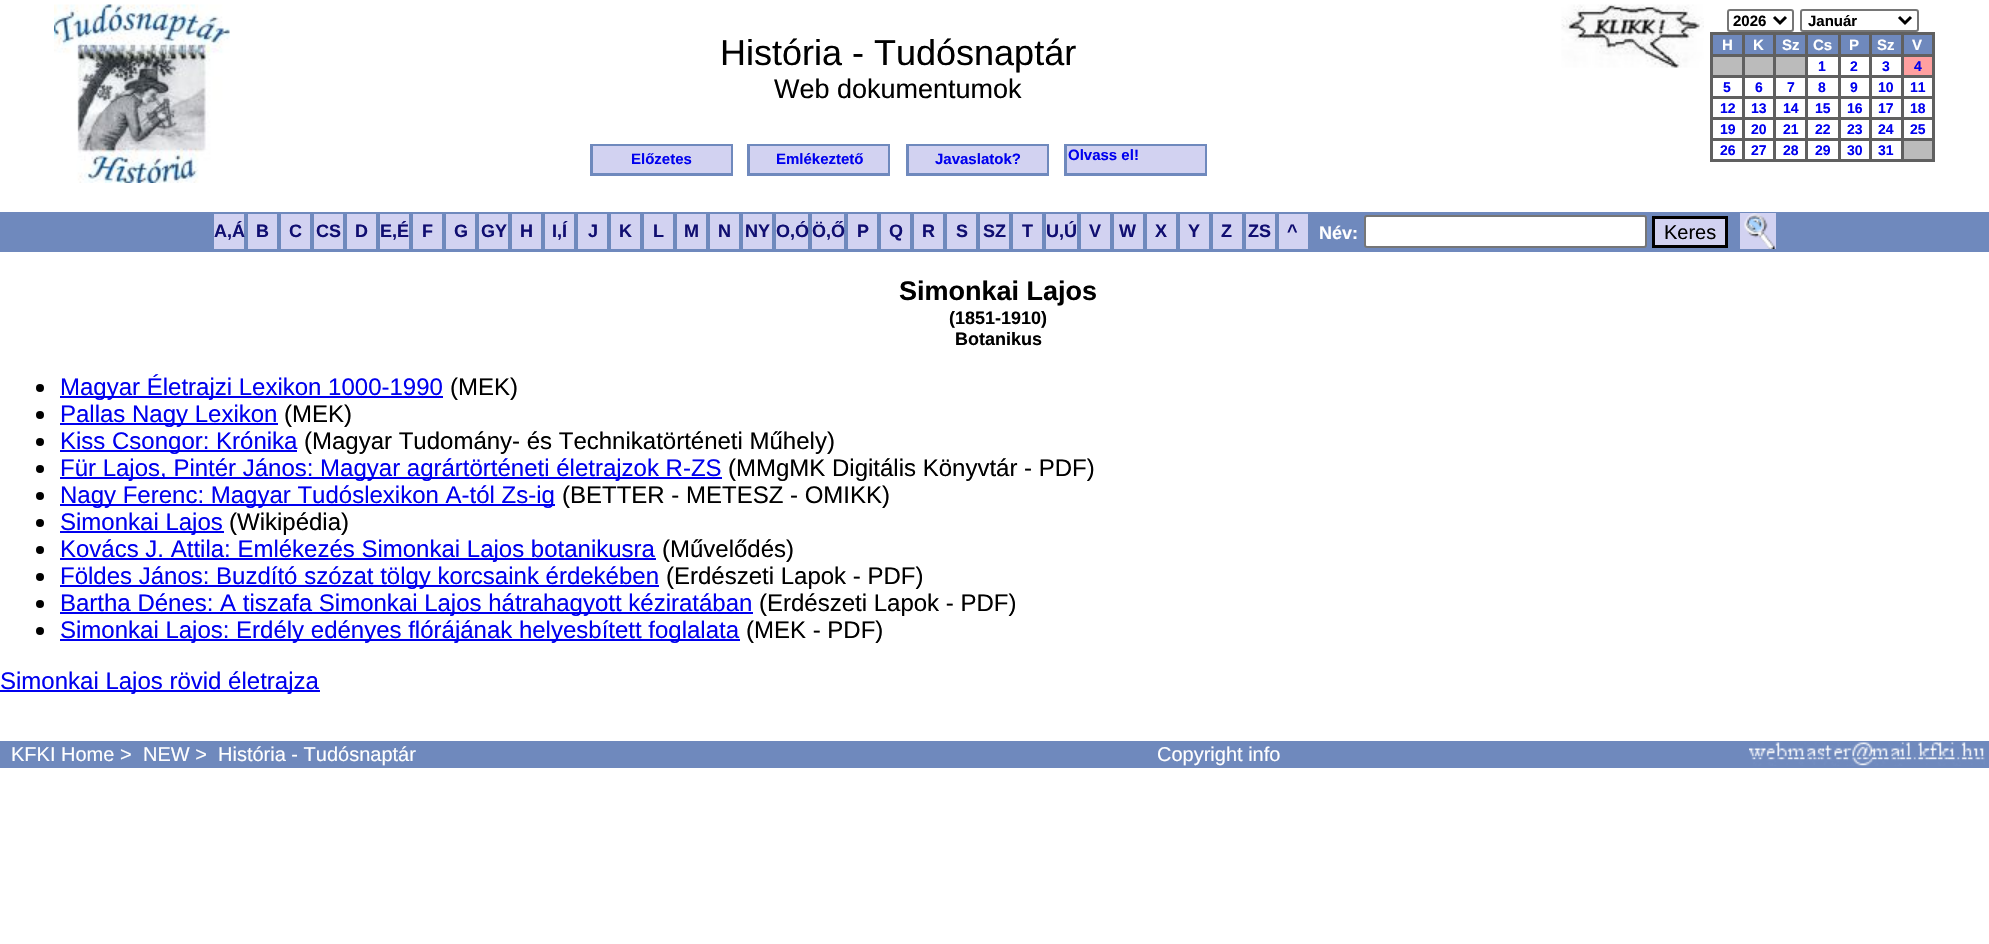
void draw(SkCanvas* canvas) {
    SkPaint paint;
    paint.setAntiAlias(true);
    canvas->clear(0xFFFFFFFF);
    canvas->drawImageRect(SkImages::DeferredFromEncodedData(SkData::MakeFromFileName("img1.png")), SkRect::MakeXYWH(54, 4, 176, 179), SkSamplingOptions());
    SkFont font1(fontMgr->matchFamilyStyle("Liberation Sans", SkFontStyle::Normal()), 36);
    font1.setSubpixel(true);
    paint.setColor(0xFF000000);
    canvas->drawString("História - Tudósnaptár", 720, 65, font1, paint);
    SkFont font2(fontMgr->matchFamilyStyle("Liberation Sans", SkFontStyle::Normal()), 27);
    font2.setSubpixel(true);
    canvas->drawString("Web dokumentumok", 774, 98, font2, paint);
    canvas->drawImageRect(SkImages::DeferredFromEncodedData(SkData::MakeFromFileName("img2.png")), SkRect::MakeXYWH(1561, 4, 143, 64), SkSamplingOptions());
    paint.setStyle(SkPaint::kStroke_Style);
    paint.setStrokeWidth(2);
    paint.setColor(0xFF767676);
    canvas->drawRoundRect(SkRect::MakeXYWH(1728, 10, 65, 21), 2, 2, paint);
    paint.setStrokeWidth(3);
    paint.setColor(0xFF000000);
    canvas->drawPath(SkPathBuilder().moveTo(1774, 17).lineTo(1780, 23).lineTo(1786, 17).detach(), paint);
    SkFont font3(fontMgr->matchFamilyStyle("Liberation Sans", SkFontStyle::Bold()), 15);
    font3.setSubpixel(true);
    paint.setStyle(SkPaint::kFill_Style);
    canvas->drawString("2026", 1733, 26, font3, paint);
    paint.setStyle(SkPaint::kStroke_Style);
    paint.setStrokeWidth(2);
    paint.setColor(0xFF767676);
    canvas->drawRoundRect(SkRect::MakeXYWH(1801, 10, 117, 21), 2, 2, paint);
    paint.setStrokeWidth(3);
    paint.setColor(0xFF000000);
    canvas->drawPath(SkPathBuilder().moveTo(1899, 17).lineTo(1905, 23).lineTo(1911, 17).detach(), paint);
    paint.setStyle(SkPaint::kFill_Style);
    canvas->drawString("Január", 1808, 26, font3, paint);
    paint.setColor(0xFF606060);
    canvas->drawRect(SkRect::MakeXYWH(1710, 32, 225, 130), paint);
    paint.setColor(0xFF6F89BD);
    canvas->drawRect(SkRect::MakeXYWH(1713, 35, 29, 19), paint);
    paint.setColor(0xFFFFFFFF);
    canvas->drawString("H", 1722, 50, font3, paint);
    paint.setColor(0xFF6F89BD);
    canvas->drawRect(SkRect::MakeXYWH(1745, 35, 28, 19), paint);
    paint.setColor(0xFFFFFFFF);
    canvas->drawString("K", 1753, 50, font3, paint);
    paint.setColor(0xFF6F89BD);
    canvas->drawRect(SkRect::MakeXYWH(1776, 35, 29, 19), paint);
    paint.setColor(0xFFFFFFFF);
    canvas->drawString("Sz", 1782, 50, font3, paint);
    paint.setColor(0xFF6F89BD);
    canvas->drawRect(SkRect::MakeXYWH(1808, 35, 30, 19), paint);
    paint.setColor(0xFFFFFFFF);
    canvas->drawString("Cs", 1813, 50, font3, paint);
    paint.setColor(0xFF6F89BD);
    canvas->drawRect(SkRect::MakeXYWH(1841, 35, 28, 19), paint);
    paint.setColor(0xFFFFFFFF);
    canvas->drawString("P", 1849, 50, font3, paint);
    paint.setColor(0xFF6F89BD);
    canvas->drawRect(SkRect::MakeXYWH(1872, 35, 29, 19), paint);
    paint.setColor(0xFFFFFFFF);
    canvas->drawString("Sz", 1877, 50, font3, paint);
    paint.setColor(0xFF6F89BD);
    canvas->drawRect(SkRect::MakeXYWH(1904, 35, 28, 19), paint);
    paint.setColor(0xFFFFFFFF);
    canvas->drawString("V", 1912, 50, font3, paint);
    paint.setColor(0xFFBBBBBB);
    canvas->drawRect(SkRect::MakeXYWH(1713, 57, 29, 18), paint);
    canvas->drawRect(SkRect::MakeXYWH(1745, 57, 28, 18), paint);
    canvas->drawRect(SkRect::MakeXYWH(1776, 57, 29, 18), paint);
    paint.setColor(0xFFFFFFFF);
    canvas->drawRect(SkRect::MakeXYWH(1808, 57, 30, 18), paint);
    SkFont font4(fontMgr->matchFamilyStyle("Liberation Sans", SkFontStyle::Bold()), 14);
    font4.setSubpixel(true);
    paint.setColor(0xFF0000EE);
    canvas->drawString("1", 1818, 71, font4, paint);
    paint.setColor(0xFFFFFFFF);
    canvas->drawRect(SkRect::MakeXYWH(1841, 57, 28, 18), paint);
    paint.setColor(0xFF0000EE);
    canvas->drawString("2", 1850, 71, font4, paint);
    paint.setColor(0xFFFFFFFF);
    canvas->drawRect(SkRect::MakeXYWH(1872, 57, 29, 18), paint);
    paint.setColor(0xFF0000EE);
    canvas->drawString("3", 1882, 71, font4, paint);
    paint.setColor(0xFFFFA0A0);
    canvas->drawRect(SkRect::MakeXYWH(1904, 57, 28, 18), paint);
    paint.setColor(0xFF0000EE);
    canvas->drawString("4", 1914, 71, font4, paint);
    paint.setColor(0xFFFFFFFF);
    canvas->drawRect(SkRect::MakeXYWH(1713, 78, 29, 18), paint);
    paint.setColor(0xFF0000EE);
    canvas->drawString("5", 1723, 92, font4, paint);
    paint.setColor(0xFFFFFFFF);
    canvas->drawRect(SkRect::MakeXYWH(1745, 78, 28, 18), paint);
    paint.setColor(0xFF0000EE);
    canvas->drawString("6", 1755, 92, font4, paint);
    paint.setColor(0xFFFFFFFF);
    canvas->drawRect(SkRect::MakeXYWH(1776, 78, 29, 18), paint);
    paint.setColor(0xFF0000EE);
    canvas->drawString("7", 1787, 92, font4, paint);
    paint.setColor(0xFFFFFFFF);
    canvas->drawRect(SkRect::MakeXYWH(1808, 78, 30, 18), paint);
    paint.setColor(0xFF0000EE);
    canvas->drawString("8", 1818, 92, font4, paint);
    paint.setColor(0xFFFFFFFF);
    canvas->drawRect(SkRect::MakeXYWH(1841, 78, 28, 18), paint);
    paint.setColor(0xFF0000EE);
    canvas->drawString("9", 1850, 92, font4, paint);
    paint.setColor(0xFFFFFFFF);
    canvas->drawRect(SkRect::MakeXYWH(1872, 78, 29, 18), paint);
    paint.setColor(0xFF0000EE);
    canvas->drawString("10", 1878, 92, font4, paint);
    paint.setColor(0xFFFFFFFF);
    canvas->drawRect(SkRect::MakeXYWH(1904, 78, 28, 18), paint);
    paint.setColor(0xFF0000EE);
    canvas->drawString("11", 1910, 92, font4, paint);
    paint.setColor(0xFFFFFFFF);
    canvas->drawRect(SkRect::MakeXYWH(1713, 99, 29, 18), paint);
    paint.setColor(0xFF0000EE);
    canvas->drawString("12", 1720, 113, font4, paint);
    paint.setColor(0xFFFFFFFF);
    canvas->drawRect(SkRect::MakeXYWH(1745, 99, 28, 18), paint);
    paint.setColor(0xFF0000EE);
    canvas->drawString("13", 1751, 113, font4, paint);
    paint.setColor(0xFFFFFFFF);
    canvas->drawRect(SkRect::MakeXYWH(1776, 99, 29, 18), paint);
    paint.setColor(0xFF0000EE);
    canvas->drawString("14", 1783, 113, font4, paint);
    paint.setColor(0xFFFFFFFF);
    canvas->drawRect(SkRect::MakeXYWH(1808, 99, 30, 18), paint);
    paint.setColor(0xFF0000EE);
    canvas->drawString("15", 1815, 113, font4, paint);
    paint.setColor(0xFFFFFFFF);
    canvas->drawRect(SkRect::MakeXYWH(1841, 99, 28, 18), paint);
    paint.setColor(0xFF0000EE);
    canvas->drawString("16", 1847, 113, font4, paint);
    paint.setColor(0xFFFFFFFF);
    canvas->drawRect(SkRect::MakeXYWH(1872, 99, 29, 18), paint);
    paint.setColor(0xFF0000EE);
    canvas->drawString("17", 1878, 113, font4, paint);
    paint.setColor(0xFFFFFFFF);
    canvas->drawRect(SkRect::MakeXYWH(1904, 99, 28, 18), paint);
    paint.setColor(0xFF0000EE);
    canvas->drawString("18", 1910, 113, font4, paint);
    paint.setColor(0xFFFFFFFF);
    canvas->drawRect(SkRect::MakeXYWH(1713, 120, 29, 18), paint);
    paint.setColor(0xFF0000EE);
    canvas->drawString("19", 1720, 134, font4, paint);
    paint.setColor(0xFFFFFFFF);
    canvas->drawRect(SkRect::MakeXYWH(1745, 120, 28, 18), paint);
    paint.setColor(0xFF0000EE);
    canvas->drawString("20", 1751, 134, font4, paint);
    paint.setColor(0xFFFFFFFF);
    canvas->drawRect(SkRect::MakeXYWH(1776, 120, 29, 18), paint);
    paint.setColor(0xFF0000EE);
    canvas->drawString("21", 1783, 134, font4, paint);
    paint.setColor(0xFFFFFFFF);
    canvas->drawRect(SkRect::MakeXYWH(1808, 120, 30, 18), paint);
    paint.setColor(0xFF0000EE);
    canvas->drawString("22", 1815, 134, font4, paint);
    paint.setColor(0xFFFFFFFF);
    canvas->drawRect(SkRect::MakeXYWH(1841, 120, 28, 18), paint);
    paint.setColor(0xFF0000EE);
    canvas->drawString("23", 1847, 134, font4, paint);
    paint.setColor(0xFFFFFFFF);
    canvas->drawRect(SkRect::MakeXYWH(1872, 120, 29, 18), paint);
    paint.setColor(0xFF0000EE);
    canvas->drawString("24", 1878, 134, font4, paint);
    paint.setColor(0xFFFFFFFF);
    canvas->drawRect(SkRect::MakeXYWH(1904, 120, 28, 18), paint);
    paint.setColor(0xFF0000EE);
    canvas->drawString("25", 1910, 134, font4, paint);
    paint.setColor(0xFFFFFFFF);
    canvas->drawRect(SkRect::MakeXYWH(1713, 141, 29, 18), paint);
    paint.setColor(0xFF0000EE);
    canvas->drawString("26", 1720, 155, font4, paint);
    paint.setColor(0xFFFFFFFF);
    canvas->drawRect(SkRect::MakeXYWH(1745, 141, 28, 18), paint);
    paint.setColor(0xFF0000EE);
    canvas->drawString("27", 1751, 155, font4, paint);
    paint.setColor(0xFFFFFFFF);
    canvas->drawRect(SkRect::MakeXYWH(1776, 141, 29, 18), paint);
    paint.setColor(0xFF0000EE);
    canvas->drawString("28", 1783, 155, font4, paint);
    paint.setColor(0xFFFFFFFF);
    canvas->drawRect(SkRect::MakeXYWH(1808, 141, 30, 18), paint);
    paint.setColor(0xFF0000EE);
    canvas->drawString("29", 1815, 155, font4, paint);
    paint.setColor(0xFFFFFFFF);
    canvas->drawRect(SkRect::MakeXYWH(1841, 141, 28, 18), paint);
    paint.setColor(0xFF0000EE);
    canvas->drawString("30", 1847, 155, font4, paint);
    paint.setColor(0xFFFFFFFF);
    canvas->drawRect(SkRect::MakeXYWH(1872, 141, 29, 18), paint);
    paint.setColor(0xFF0000EE);
    canvas->drawString("31", 1878, 155, font4, paint);
    paint.setColor(0xFFBBBBBB);
    canvas->drawRect(SkRect::MakeXYWH(1904, 141, 28, 18), paint);
    paint.setColor(0xFFD2D2F1);
    canvas->drawRect(SkRect::MakeXYWH(593, 146, 138, 27), paint);
    paint.setColor(0xFF6F89BD);
    canvas->drawRect(SkRect::MakeXYWH(590, 144, 142, 2), paint);
    canvas->drawRect(SkRect::MakeXYWH(731, 144, 2, 32), paint);
    canvas->drawRect(SkRect::MakeXYWH(590, 173, 142, 3), paint);
    canvas->drawRect(SkRect::MakeXYWH(590, 144, 3, 32), paint);
    paint.setColor(0xFF0000EE);
    canvas->drawString("Előzetes", 631, 164, font3, paint);
    paint.setColor(0xFFD2D2F1);
    canvas->drawRect(SkRect::MakeXYWH(750, 146, 138, 27), paint);
    paint.setColor(0xFF6F89BD);
    canvas->drawRect(SkRect::MakeXYWH(747, 144, 143, 2), paint);
    canvas->drawRect(SkRect::MakeXYWH(888, 144, 2, 32), paint);
    canvas->drawRect(SkRect::MakeXYWH(747, 173, 143, 3), paint);
    canvas->drawRect(SkRect::MakeXYWH(747, 144, 3, 32), paint);
    paint.setColor(0xFF0000EE);
    canvas->drawString("Emlékeztető", 776, 164, font3, paint);
    paint.setColor(0xFFD2D2F1);
    canvas->drawRect(SkRect::MakeXYWH(909, 146, 138, 27), paint);
    paint.setColor(0xFF6F89BD);
    canvas->drawRect(SkRect::MakeXYWH(906, 144, 143, 2), paint);
    canvas->drawRect(SkRect::MakeXYWH(1047, 144, 2, 32), paint);
    canvas->drawRect(SkRect::MakeXYWH(906, 173, 143, 3), paint);
    canvas->drawRect(SkRect::MakeXYWH(906, 144, 3, 32), paint);
    paint.setColor(0xFF0000EE);
    canvas->drawString("Javaslatok?", 935, 164, font3, paint);
    paint.setColor(0xFFD2D2F1);
    canvas->drawRect(SkRect::MakeXYWH(1067, 146, 138, 27), paint);
    paint.setColor(0xFF6F89BD);
    canvas->drawRect(SkRect::MakeXYWH(1064, 144, 142, 2), paint);
    canvas->drawRect(SkRect::MakeXYWH(1205, 144, 2, 32), paint);
    canvas->drawRect(SkRect::MakeXYWH(1064, 173, 142, 3), paint);
    canvas->drawRect(SkRect::MakeXYWH(1064, 144, 3, 32), paint);
    paint.setColor(0xFF0000EE);
    canvas->drawString("Olvass el!", 1068, 160, font3, paint);
    paint.setColor(0xFF6F89BD);
    canvas->drawRect(SkRect::MakeXYWH(0, 212, 1989, 40), paint);
    paint.setColor(0xFFD2D2F1);
    canvas->drawRect(SkRect::MakeXYWH(214, 214, 30, 35), paint);
    SkFont font5(fontMgr->matchFamilyStyle("Liberation Sans", SkFontStyle::Bold()), 18);
    font5.setSubpixel(true);
    paint.setColor(0xFF100E71);
    canvas->drawString("A,Á", 214, 237, font5, paint);
    paint.setColor(0xFFD2D2F1);
    canvas->drawRect(SkRect::MakeXYWH(248, 214, 29, 35), paint);
    paint.setColor(0xFF100E71);
    canvas->drawString("B", 256, 237, font5, paint);
    paint.setColor(0xFFD2D2F1);
    canvas->drawRect(SkRect::MakeXYWH(281, 214, 29, 35), paint);
    paint.setColor(0xFF100E71);
    canvas->drawString("C", 289, 237, font5, paint);
    paint.setColor(0xFFD2D2F1);
    canvas->drawRect(SkRect::MakeXYWH(314, 214, 29, 35), paint);
    paint.setColor(0xFF100E71);
    canvas->drawString("CS", 316, 237, font5, paint);
    paint.setColor(0xFFD2D2F1);
    canvas->drawRect(SkRect::MakeXYWH(347, 214, 29, 35), paint);
    paint.setColor(0xFF100E71);
    canvas->drawString("D", 355, 237, font5, paint);
    paint.setColor(0xFFD2D2F1);
    canvas->drawRect(SkRect::MakeXYWH(380, 214, 29, 35), paint);
    paint.setColor(0xFF100E71);
    canvas->drawString("E,É", 380, 237, font5, paint);
    paint.setColor(0xFFD2D2F1);
    canvas->drawRect(SkRect::MakeXYWH(413, 214, 29, 35), paint);
    paint.setColor(0xFF100E71);
    canvas->drawString("F", 422, 237, font5, paint);
    paint.setColor(0xFFD2D2F1);
    canvas->drawRect(SkRect::MakeXYWH(446, 214, 29, 35), paint);
    paint.setColor(0xFF100E71);
    canvas->drawString("G", 454, 237, font5, paint);
    paint.setColor(0xFFD2D2F1);
    canvas->drawRect(SkRect::MakeXYWH(479, 214, 29, 35), paint);
    paint.setColor(0xFF100E71);
    canvas->drawString("GY", 481, 237, font5, paint);
    paint.setColor(0xFFD2D2F1);
    canvas->drawRect(SkRect::MakeXYWH(512, 214, 29, 35), paint);
    paint.setColor(0xFF100E71);
    canvas->drawString("H", 520, 237, font5, paint);
    paint.setColor(0xFFD2D2F1);
    canvas->drawRect(SkRect::MakeXYWH(545, 214, 29, 35), paint);
    paint.setColor(0xFF100E71);
    canvas->drawString("I,Í", 552, 237, font5, paint);
    paint.setColor(0xFFD2D2F1);
    canvas->drawRect(SkRect::MakeXYWH(578, 214, 29, 35), paint);
    paint.setColor(0xFF100E71);
    canvas->drawString("J", 588, 237, font5, paint);
    paint.setColor(0xFFD2D2F1);
    canvas->drawRect(SkRect::MakeXYWH(611, 214, 29, 35), paint);
    paint.setColor(0xFF100E71);
    canvas->drawString("K", 619, 237, font5, paint);
    paint.setColor(0xFFD2D2F1);
    canvas->drawRect(SkRect::MakeXYWH(644, 214, 29, 35), paint);
    paint.setColor(0xFF100E71);
    canvas->drawString("L", 653, 237, font5, paint);
    paint.setColor(0xFFD2D2F1);
    canvas->drawRect(SkRect::MakeXYWH(677, 214, 29, 35), paint);
    paint.setColor(0xFF100E71);
    canvas->drawString("M", 684, 237, font5, paint);
    paint.setColor(0xFFD2D2F1);
    canvas->drawRect(SkRect::MakeXYWH(710, 214, 29, 35), paint);
    paint.setColor(0xFF100E71);
    canvas->drawString("N", 718, 237, font5, paint);
    paint.setColor(0xFFD2D2F1);
    canvas->drawRect(SkRect::MakeXYWH(743, 214, 29, 35), paint);
    paint.setColor(0xFF100E71);
    canvas->drawString("NY", 745, 237, font5, paint);
    paint.setColor(0xFFD2D2F1);
    canvas->drawRect(SkRect::MakeXYWH(776, 214, 32, 35), paint);
    paint.setColor(0xFF100E71);
    canvas->drawString("O,Ó", 776, 237, font5, paint);
    paint.setColor(0xFFD2D2F1);
    canvas->drawRect(SkRect::MakeXYWH(812, 214, 32, 35), paint);
    paint.setColor(0xFF100E71);
    canvas->drawString("Ö,Ő", 812, 237, font5, paint);
    paint.setColor(0xFFD2D2F1);
    canvas->drawRect(SkRect::MakeXYWH(848, 214, 29, 35), paint);
    paint.setColor(0xFF100E71);
    canvas->drawString("P", 857, 237, font5, paint);
    paint.setColor(0xFFD2D2F1);
    canvas->drawRect(SkRect::MakeXYWH(881, 214, 29, 35), paint);
    paint.setColor(0xFF100E71);
    canvas->drawString("Q", 889, 237, font5, paint);
    paint.setColor(0xFFD2D2F1);
    canvas->drawRect(SkRect::MakeXYWH(914, 214, 29, 35), paint);
    paint.setColor(0xFF100E71);
    canvas->drawString("R", 922, 237, font5, paint);
    paint.setColor(0xFFD2D2F1);
    canvas->drawRect(SkRect::MakeXYWH(947, 214, 29, 35), paint);
    paint.setColor(0xFF100E71);
    canvas->drawString("S", 956, 237, font5, paint);
    paint.setColor(0xFFD2D2F1);
    canvas->drawRect(SkRect::MakeXYWH(980, 214, 29, 35), paint);
    paint.setColor(0xFF100E71);
    canvas->drawString("SZ", 983, 237, font5, paint);
    paint.setColor(0xFFD2D2F1);
    canvas->drawRect(SkRect::MakeXYWH(1013, 214, 29, 35), paint);
    paint.setColor(0xFF100E71);
    canvas->drawString("T", 1022, 237, font5, paint);
    paint.setColor(0xFFD2D2F1);
    canvas->drawRect(SkRect::MakeXYWH(1046, 214, 31, 35), paint);
    paint.setColor(0xFF100E71);
    canvas->drawString("U,Ú", 1046, 237, font5, paint);
    paint.setColor(0xFFD2D2F1);
    canvas->drawRect(SkRect::MakeXYWH(1081, 214, 29, 35), paint);
    paint.setColor(0xFF100E71);
    canvas->drawString("V", 1089, 237, font5, paint);
    paint.setColor(0xFFD2D2F1);
    canvas->drawRect(SkRect::MakeXYWH(1114, 214, 29, 35), paint);
    paint.setColor(0xFF100E71);
    canvas->drawString("W", 1119, 237, font5, paint);
    paint.setColor(0xFFD2D2F1);
    canvas->drawRect(SkRect::MakeXYWH(1147, 214, 29, 35), paint);
    paint.setColor(0xFF100E71);
    canvas->drawString("X", 1155, 237, font5, paint);
    paint.setColor(0xFFD2D2F1);
    canvas->drawRect(SkRect::MakeXYWH(1180, 214, 29, 35), paint);
    paint.setColor(0xFF100E71);
    canvas->drawString("Y", 1188, 237, font5, paint);
    paint.setColor(0xFFD2D2F1);
    canvas->drawRect(SkRect::MakeXYWH(1213, 214, 29, 35), paint);
    paint.setColor(0xFF100E71);
    canvas->drawString("Z", 1221, 237, font5, paint);
    paint.setColor(0xFFD2D2F1);
    canvas->drawRect(SkRect::MakeXYWH(1246, 214, 29, 35), paint);
    paint.setColor(0xFF100E71);
    canvas->drawString("ZS", 1248, 237, font5, paint);
    paint.setColor(0xFFD2D2F1);
    canvas->drawRect(SkRect::MakeXYWH(1279, 214, 29, 35), paint);
    paint.setColor(0xFF100E71);
    canvas->drawString("^", 1287, 237, font5, paint);
    paint.setColor(0xFFFFFFFF);
    canvas->drawString("Név:", 1319, 239, font5, paint);
    canvas->drawRoundRect(SkRect::MakeXYWH(1365, 216, 281, 31), 2, 2, paint);
    paint.setStyle(SkPaint::kStroke_Style);
    paint.setStrokeWidth(2);
    paint.setColor(0xFF767676);
    canvas->drawRoundRect(SkRect::MakeXYWH(1365, 216, 281, 31), 2, 2, paint);
    paint.setStyle(SkPaint::kFill_Style);
    paint.setColor(0xFFD2D2F1);
    canvas->drawRect(SkRect::MakeXYWH(1653.5f, 217.5f, 73, 29), paint);
    paint.setStyle(SkPaint::kStroke_Style);
    paint.setStrokeWidth(3);
    paint.setColor(0xFF000000);
    canvas->drawRect(SkRect::MakeXYWH(1653.5f, 217.5f, 73, 29), paint);
    SkFont font6(fontMgr->matchFamilyStyle("Liberation Sans", SkFontStyle::Normal()), 20);
    font6.setSubpixel(true);
    paint.setStyle(SkPaint::kFill_Style);
    canvas->drawString("Keres", 1664, 239, font6, paint);
    canvas->drawImageRect(SkImages::DeferredFromEncodedData(SkData::MakeFromFileName("img3.png")), SkRect::MakeXYWH(1740, 213, 36, 36), SkSamplingOptions());
    SkFont font7(fontMgr->matchFamilyStyle("Liberation Sans", SkFontStyle::Bold()), 27);
    font7.setSubpixel(true);
    canvas->drawString("Simonkai Lajos", 899, 300, font7, paint);
    canvas->drawString("(1851-1910)", 949, 324, font5, paint);
    canvas->drawString("Botanikus", 955, 345, font5, paint);
    canvas->drawCircle(40, 388, 4, paint);
    paint.setColor(0xFF0000EE);
    canvas->drawRect(SkRect::MakeXYWH(60, 396, 383, 2), paint);
    SkFont font8(fontMgr->matchFamilyStyle("Liberation Sans", SkFontStyle::Normal()), 24);
    font8.setSubpixel(true);
    canvas->drawString("Magyar Életrajzi Lexikon 1000-1990", 60, 395, font8, paint);
    paint.setColor(0xFF000000);
    canvas->drawString("(MEK)", 450, 395, font8, paint);
    canvas->drawCircle(40, 415, 4, paint);
    paint.setColor(0xFF0000EE);
    canvas->drawRect(SkRect::MakeXYWH(60, 423, 218, 2), paint);
    canvas->drawString("Pallas Nagy Lexikon", 60, 422, font8, paint);
    paint.setColor(0xFF000000);
    canvas->drawString("(MEK)", 284, 422, font8, paint);
    canvas->drawCircle(40, 442, 4, paint);
    paint.setColor(0xFF0000EE);
    canvas->drawRect(SkRect::MakeXYWH(60, 450, 237, 2), paint);
    canvas->drawString("Kiss Csongor: Krónika", 60, 449, font8, paint);
    paint.setColor(0xFF000000);
    canvas->drawString("(Magyar Tudomány- és Technikatörténeti Műhely)", 304, 449, font8, paint);
    canvas->drawCircle(40, 469, 4, paint);
    paint.setColor(0xFF0000EE);
    canvas->drawRect(SkRect::MakeXYWH(60, 477, 662, 2), paint);
    canvas->drawString("Für Lajos, Pintér János: Magyar agrártörténeti életrajzok R-ZS", 60, 476, font8, paint);
    paint.setColor(0xFF000000);
    canvas->drawString("(MMgMK Digitális Könyvtár - PDF)", 728, 476, font8, paint);
    canvas->drawCircle(40, 496, 4, paint);
    paint.setColor(0xFF0000EE);
    canvas->drawRect(SkRect::MakeXYWH(60, 504, 495, 2), paint);
    canvas->drawString("Nagy Ferenc: Magyar Tudóslexikon A-tól Zs-ig", 60, 503, font8, paint);
    paint.setColor(0xFF000000);
    canvas->drawString("(BETTER - METESZ - OMIKK)", 562, 503, font8, paint);
    canvas->drawCircle(40, 523, 4, paint);
    paint.setColor(0xFF0000EE);
    canvas->drawRect(SkRect::MakeXYWH(60, 531, 164, 2), paint);
    canvas->drawString("Simonkai Lajos", 60, 530, font8, paint);
    paint.setColor(0xFF000000);
    canvas->drawString("(Wikipédia)", 229, 530, font8, paint);
    canvas->drawCircle(40, 550, 4, paint);
    paint.setColor(0xFF0000EE);
    canvas->drawRect(SkRect::MakeXYWH(60, 558, 596, 2), paint);
    canvas->drawString("Kovács J. Attila: Emlékezés Simonkai Lajos botanikusra", 60, 557, font8, paint);
    paint.setColor(0xFF000000);
    canvas->drawString("(Művelődés)", 662, 557, font8, paint);
    canvas->drawCircle(40, 577, 4, paint);
    paint.setColor(0xFF0000EE);
    canvas->drawRect(SkRect::MakeXYWH(60, 585, 599, 2), paint);
    canvas->drawString("Földes János: Buzdító szózat tölgy korcsaink érdekében", 60, 584, font8, paint);
    paint.setColor(0xFF000000);
    canvas->drawString("(Erdészeti Lapok - PDF)", 666, 584, font8, paint);
    canvas->drawCircle(40, 604, 4, paint);
    paint.setColor(0xFF0000EE);
    canvas->drawRect(SkRect::MakeXYWH(60, 612, 693, 2), paint);
    canvas->drawString("Bartha Dénes: A tiszafa Simonkai Lajos hátrahagyott kéziratában", 60, 611, font8, paint);
    paint.setColor(0xFF000000);
    canvas->drawString("(Erdészeti Lapok - PDF)", 759, 611, font8, paint);
    canvas->drawCircle(40, 631, 4, paint);
    paint.setColor(0xFF0000EE);
    canvas->drawRect(SkRect::MakeXYWH(60, 639, 680, 2), paint);
    canvas->drawString("Simonkai Lajos: Erdély edényes flórájának helyesbített foglalata", 60, 638, font8, paint);
    paint.setColor(0xFF000000);
    canvas->drawString("(MEK - PDF)", 746, 638, font8, paint);
    paint.setColor(0xFF0000EE);
    canvas->drawRect(SkRect::MakeXYWH(0, 690, 320, 2), paint);
    canvas->drawString("Simonkai Lajos rövid életrajza", 0, 689, font8, paint);
    paint.setColor(0xFF6F89BD);
    canvas->drawRect(SkRect::MakeXYWH(0, 741, 1989, 27), paint);
    paint.setColor(0xFFFFFFFF);
    canvas->drawString("KFKI Home >", 11, 761, font6, paint);
    canvas->drawString("NEW >", 143, 761, font6, paint);
    canvas->drawString("História - Tudósnaptár", 218, 761, font6, paint);
    canvas->drawString("Copyright info", 1157, 761, font6, paint);
    canvas->drawImageRect(SkImages::DeferredFromEncodedData(SkData::MakeFromFileName("img4.png")), SkRect::MakeXYWH(1749, 742, 236, 24), SkSamplingOptions());
}
